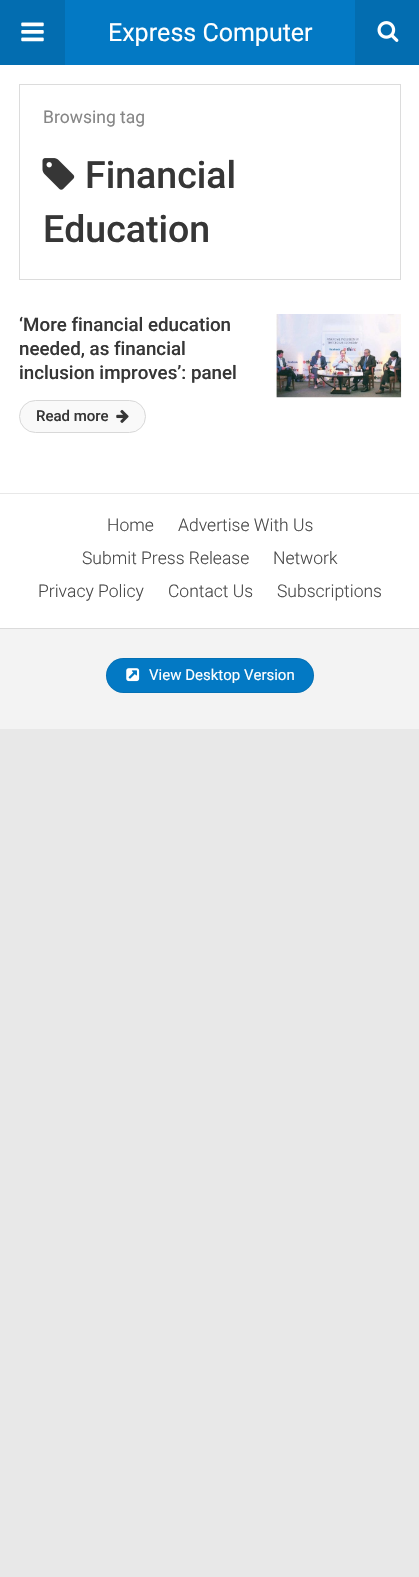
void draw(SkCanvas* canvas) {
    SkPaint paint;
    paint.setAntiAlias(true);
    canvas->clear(0xFFE8E8E8);
    paint.setColor(0xFFFFFFFF);
    canvas->drawRect(SkRect::MakeXYWH(0, 65, 419, 428), paint);
    paint.setColor(0xFF0379C4);
    canvas->drawRect(SkRect::MakeXYWH(65, 0, 290, 65), paint);
    paint.setColor(0xFF036DB0);
    canvas->drawRect(SkRect::MakeXYWH(0, 0, 65, 65), paint);
    canvas->drawImageRect(SkImages::DeferredFromEncodedData(SkData::MakeFromFileName("img1.png")), SkRect::MakeXYWH(21, 22, 23, 20), SkSamplingOptions());
    SkFont font1(fontMgr->matchFamilyStyle("Roboto", SkFontStyle::Normal()), 25);
    font1.setSubpixel(true);
    paint.setColor(0xFFFFFFFF);
    canvas->drawString("Express Computer", 108, 41, font1, paint);
    paint.setColor(0xFF036DB0);
    canvas->drawRect(SkRect::MakeXYWH(355, 0, 64, 65), paint);
    canvas->drawImageRect(SkImages::DeferredFromEncodedData(SkData::MakeFromFileName("img2.png")), SkRect::MakeXYWH(377, 21, 22, 21), SkSamplingOptions());
    paint.setStyle(SkPaint::kStroke_Style);
    paint.setStrokeWidth(1);
    paint.setColor(0xFFDCDCDC);
    canvas->drawRect(SkRect::MakeXYWH(19.5f, 84.5f, 381, 195), paint);
    SkFont font2(fontMgr->matchFamilyStyle("Roboto", SkFontStyle::Normal()), 17.5f);
    font2.setSubpixel(true);
    paint.setStyle(SkPaint::kFill_Style);
    paint.setColor(0xFF868686);
    canvas->drawString("Browsing tag", 43, 123, font2, paint);
    canvas->drawImageRect(SkImages::DeferredFromEncodedData(SkData::MakeFromFileName("img3.png")), SkRect::MakeXYWH(42, 158, 33, 32), SkSamplingOptions());
    SkFont font3(fontMgr->matchFamilyStyle("Roboto", SkFontStyle(500, SkFontStyle::kNormal_Width, SkFontStyle::kUpright_Slant)), 37.5f);
    font3.setSubpixel(true);
    paint.setColor(0xFF363636);
    canvas->drawString("Financial", 85, 188, font3, paint);
    canvas->drawString("Education", 43, 242, font3, paint);
    SkFont font4(fontMgr->matchFamilyStyle("Roboto", SkFontStyle(500, SkFontStyle::kNormal_Width, SkFontStyle::kUpright_Slant)), 18.75f);
    font4.setSubpixel(true);
    canvas->drawString("‘More financial education", 19, 331, font4, paint);
    canvas->drawString("needed, as financial", 19, 355, font4, paint);
    canvas->drawString("inclusion improves’: panel", 19, 379, font4, paint);
    canvas->drawImageRect(SkImages::DeferredFromEncodedData(SkData::MakeFromFileName("img4.png")), SkRect::MakeXYWH(276, 314, 126, 84), SkSamplingOptions());
    paint.setColor(0xFFF9F9F9);
    canvas->drawRoundRect(SkRect::MakeXYWH(19.5f, 400.5f, 126, 32), 16, 16, paint);
    paint.setStyle(SkPaint::kStroke_Style);
    paint.setColor(0xFFD8D8D8);
    canvas->drawRoundRect(SkRect::MakeXYWH(19.5f, 400.5f, 126, 32), 16, 16, paint);
    SkFont font5(fontMgr->matchFamilyStyle("Roboto", SkFontStyle(500, SkFontStyle::kNormal_Width, SkFontStyle::kUpright_Slant)), 15);
    font5.setSubpixel(true);
    paint.setStyle(SkPaint::kFill_Style);
    paint.setColor(0xFF363636);
    canvas->drawString("Read more", 36, 421, font5, paint);
    canvas->drawImageRect(SkImages::DeferredFromEncodedData(SkData::MakeFromFileName("img5.png")), SkRect::MakeXYWH(116, 409, 13, 14), SkSamplingOptions());
    paint.setColor(0xFFF3F3F3);
    canvas->drawRect(SkRect::MakeXYWH(0, 629, 419, 100), paint);
    paint.setColor(0xFFFFFFFF);
    canvas->drawRect(SkRect::MakeXYWH(0, 494, 419, 134), paint);
    SkFont font6(fontMgr->matchFamilyStyle("Roboto", SkFontStyle(300, SkFontStyle::kNormal_Width, SkFontStyle::kUpright_Slant)), 17.5f);
    font6.setSubpixel(true);
    paint.setColor(0xFF494949);
    canvas->drawString("Home", 107, 531, font6, paint);
    canvas->drawString("Advertise With Us", 178, 531, font6, paint);
    canvas->drawString("Submit Press Release", 82, 564, font6, paint);
    canvas->drawString("Network", 273, 564, font6, paint);
    canvas->drawString("Privacy Policy", 38, 597, font6, paint);
    canvas->drawString("Contact Us", 168, 597, font6, paint);
    canvas->drawString("Subscriptions", 277, 597, font6, paint);
    paint.setColor(0xFFDBDBDB);
    canvas->drawRect(SkRect::MakeXYWH(0, 628, 419, 1), paint);
    paint.setColor(0xFF0379C4);
    canvas->drawRoundRect(SkRect::MakeXYWH(106, 658, 208, 35), 17.5f, 17.5f, paint);
    paint.setStyle(SkPaint::kStroke_Style);
    paint.setColor(0x14000000);
    canvas->drawRoundRect(SkRect::MakeXYWH(106.5f, 658.5f, 207, 34), 17, 17, paint);
    canvas->drawImageRect(SkImages::DeferredFromEncodedData(SkData::MakeFromFileName("img6.png")), SkRect::MakeXYWH(126, 668, 14, 14), SkSamplingOptions());
    SkFont font7(fontMgr->matchFamilyStyle("Roboto", SkFontStyle::Normal()), 15);
    font7.setSubpixel(true);
    paint.setStyle(SkPaint::kFill_Style);
    paint.setColor(0xFFFFFFFF);
    canvas->drawString("View Desktop Version", 149, 680, font7, paint);
}
